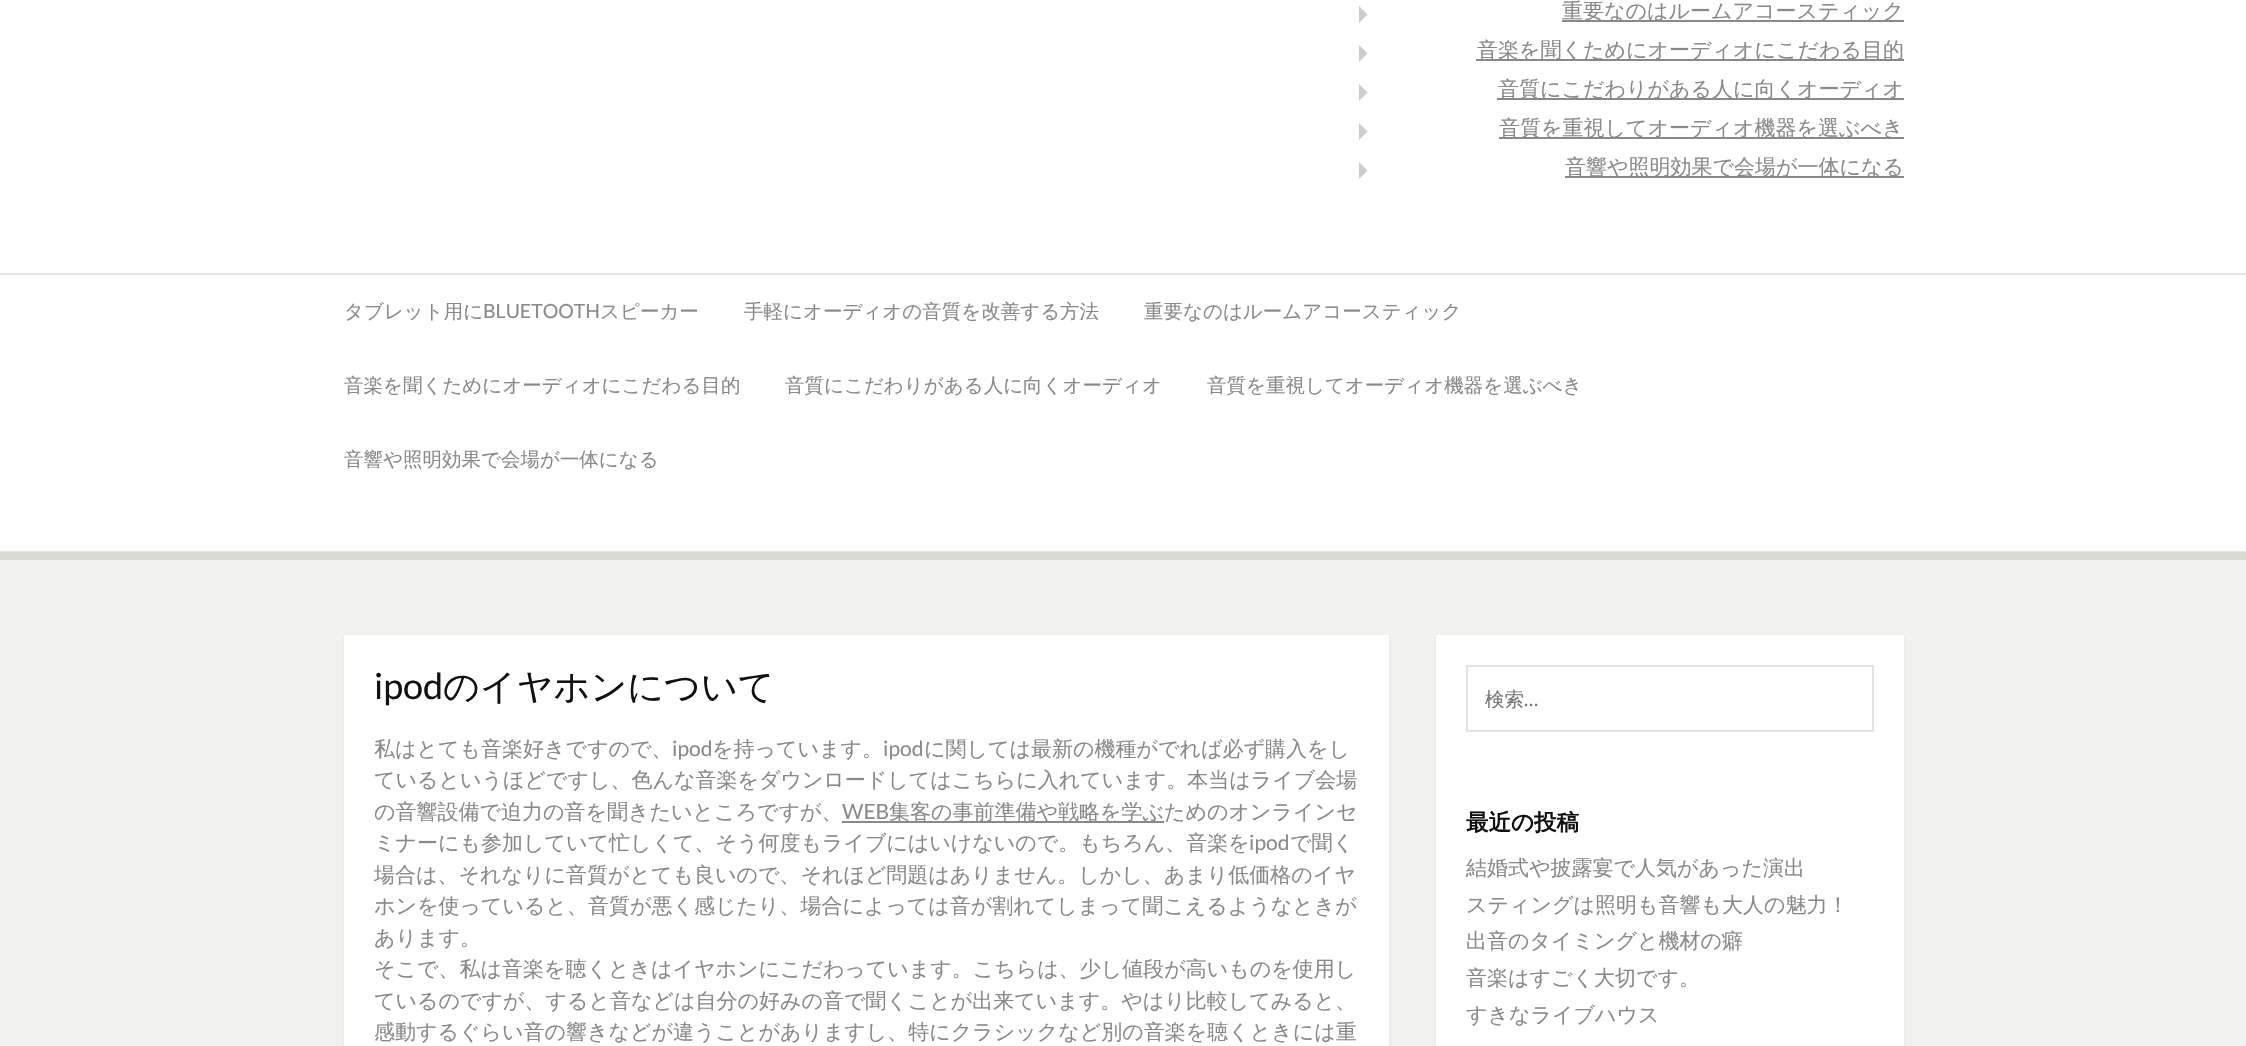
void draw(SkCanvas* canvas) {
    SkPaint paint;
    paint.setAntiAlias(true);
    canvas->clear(0xFFFFFFFF);
    paint.setColor(0xFFCCCCCC);
    canvas->drawPath(SkPathBuilder().moveTo(1359, 23).lineTo(1359, 6).lineTo(1367.5f, 14.5f).close().detach(), paint);
    paint.setColor(0xFF898989);
    canvas->drawRect(SkRect::MakeXYWH(1562, 20, 342, 2), paint);
    SkFont font1(fontMgr->matchFamilyStyle("WenQuanYi Zen Hei", SkFontStyle(500, SkFontStyle::kNormal_Width, SkFontStyle::kUpright_Slant)), 21);
    font1.setSubpixel(true);
    canvas->drawString("重要なのはルームアコースティック", 1562, 18, font1, paint);
    paint.setColor(0xFFCCCCCC);
    canvas->drawPath(SkPathBuilder().moveTo(1359, 62).lineTo(1359, 45).lineTo(1367.5f, 53.5f).close().detach(), paint);
    paint.setColor(0xFF898989);
    canvas->drawRect(SkRect::MakeXYWH(1476, 59, 428, 2), paint);
    canvas->drawString("音楽を聞くためにオーディオにこだわる目的", 1477, 57, font1, paint);
    paint.setColor(0xFFCCCCCC);
    canvas->drawPath(SkPathBuilder().moveTo(1359, 101).lineTo(1359, 84).lineTo(1367.5f, 92.5f).close().detach(), paint);
    paint.setColor(0xFF898989);
    canvas->drawRect(SkRect::MakeXYWH(1497, 98, 407, 2), paint);
    canvas->drawString("音質にこだわりがある人に向くオーディオ", 1498, 96, font1, paint);
    paint.setColor(0xFFCCCCCC);
    canvas->drawPath(SkPathBuilder().moveTo(1359, 140).lineTo(1359, 123).lineTo(1367.5f, 131.5f).close().detach(), paint);
    paint.setColor(0xFF898989);
    canvas->drawRect(SkRect::MakeXYWH(1499, 137, 405, 2), paint);
    canvas->drawString("音質を重視してオーディオ機器を選ぶべき", 1499, 135, font1, paint);
    paint.setColor(0xFFCCCCCC);
    canvas->drawPath(SkPathBuilder().moveTo(1359, 179).lineTo(1359, 162).lineTo(1367.5f, 170.5f).close().detach(), paint);
    paint.setColor(0xFF898989);
    canvas->drawRect(SkRect::MakeXYWH(1565, 176, 339, 2), paint);
    canvas->drawString("音響や照明効果で会場が一体になる", 1565, 174, font1, paint);
    paint.setColor(0xFFE6E6E6);
    canvas->drawRect(SkRect::MakeXYWH(0, 273, 2246, 2), paint);
    canvas->drawRect(SkRect::MakeXYWH(0, 551, 2246, 1), paint);
    SkFont font2(fontMgr->matchFamilyStyle("WenQuanYi Zen Hei", SkFontStyle(500, SkFontStyle::kNormal_Width, SkFontStyle::kUpright_Slant)), 19.5f);
    font2.setSubpixel(true);
    paint.setColor(0xFF898989);
    canvas->drawString("タブレット用に", 344, 318, font2, paint);
    SkFont font3(fontMgr->matchFamilyStyle("Lato", SkFontStyle::Normal()), 19.5f);
    font3.setSubpixel(true);
    canvas->drawString("BLUETOOTH", 483, 318, font3, paint);
    canvas->drawString("スピーカー", 600, 318, font2, paint);
    canvas->drawString("手軽にオーディオの音質を改善する方法", 744, 318, font2, paint);
    canvas->drawString("重要なのはルームアコースティック", 1144, 318, font2, paint);
    canvas->drawString("音楽を聞くためにオーディオにこだわる目的", 344, 392, font2, paint);
    canvas->drawString("音質にこだわりがある人に向くオーディオ", 785, 392, font2, paint);
    canvas->drawString("音質を重視してオーディオ機器を選ぶべき", 1207, 392, font2, paint);
    canvas->drawString("音響や照明効果で会場が一体になる", 344, 466, font2, paint);
    paint.setColor(0xFFF2F2F0);
    canvas->drawRect(SkRect::MakeXYWH(0, 560, 2246, 486), paint);
    paint.setColor(0xFFDADBD4);
    canvas->drawRect(SkRect::MakeXYWH(0, 552, 2246, 8), paint);
    paint.setColor(0x14000000);
    paint.setMaskFilter(SkMaskFilter::MakeBlur(kNormal_SkBlurStyle, 1));
    canvas->drawRect(SkRect::MakeXYWH(344, 636, 1045, 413), paint);
    paint.setMaskFilter(nullptr);
    paint.setColor(0xFFFFFFFF);
    canvas->drawRect(SkRect::MakeXYWH(344, 635, 1045, 411), paint);
    SkFont font4(fontMgr->matchFamilyStyle("Lato", SkFontStyle::Normal()), 36);
    font4.setSubpixel(true);
    paint.setColor(0xFF111111);
    canvas->drawString("ipod", 374, 699, font4, paint);
    SkFont font5(fontMgr->matchFamilyStyle("WenQuanYi Zen Hei", SkFontStyle(500, SkFontStyle::kNormal_Width, SkFontStyle::kUpright_Slant)), 36);
    font5.setSubpixel(true);
    canvas->drawString("のイヤホンについて", 443, 699, font5, paint);
    paint.setColor(0xFF898989);
    canvas->drawString("私はとても音楽好きですので、", 374, 756, font1, paint);
    SkFont font6(fontMgr->matchFamilyStyle("Lato", SkFontStyle::Normal()), 21);
    font6.setSubpixel(true);
    canvas->drawString("ipod", 672, 756, font6, paint);
    canvas->drawString("を持っています。", 712, 756, font1, paint);
    canvas->drawString("ipod", 883, 756, font6, paint);
    canvas->drawString("に関しては最新の機種がでれば必ず購入をし", 924, 756, font1, paint);
    canvas->drawString("ているというほどですし、色んな音楽をダウンロードしてはこちらに入れています。本当はライブ会場", 374, 787, font1, paint);
    canvas->drawString("の音響設備で迫力の音を聞きたいところですが、", 374, 819, font1, paint);
    canvas->drawString("WEB", 842, 819, font6, paint);
    canvas->drawRect(SkRect::MakeXYWH(842, 821, 322, 2), paint);
    canvas->drawString("集客の事前準備や戦略を学ぶためのオンラインセ", 889, 819, font1, paint);
    canvas->drawString("ミナーにも参加していて忙しくて、そう何度もライブにはいけないので。もちろん、音楽を", 374, 850, font1, paint);
    canvas->drawString("ipod", 1249, 850, font6, paint);
    canvas->drawString("で聞く", 1290, 850, font1, paint);
    canvas->drawString("場合は、それなりに音質がとても良いので、それほど問題はありません。しかし、あまり低価格のイヤ", 374, 882, font1, paint);
    canvas->drawString("ホンを使っていると、音質が悪く感じたり、場合によっては音が割れてしまって聞こえるようなときが", 374, 913, font1, paint);
    canvas->drawString("あります。", 374, 945, font1, paint);
    canvas->drawString("そこで、私は音楽を聴くときはイヤホンにこだわっています。こちらは、少し値段が高いものを使用し", 374, 976, font1, paint);
    canvas->drawString("ているのですが、すると音などは自分の好みの音で聞くことが出来ています。やはり比較してみると、", 374, 1008, font1, paint);
    canvas->drawString("感動するぐらい音の響きなどが違うことがありますし、特にクラシックなど別の音楽を聴くときには重", 374, 1039, font1, paint);
    paint.setColor(0x14000000);
    paint.setMaskFilter(SkMaskFilter::MakeBlur(kNormal_SkBlurStyle, 1));
    canvas->drawRect(SkRect::MakeXYWH(1436, 636, 468, 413), paint);
    paint.setMaskFilter(nullptr);
    paint.setColor(0xFFFFFFFF);
    canvas->drawRect(SkRect::MakeXYWH(1436, 635, 468, 411), paint);
    paint.setStyle(SkPaint::kStroke_Style);
    paint.setStrokeWidth(2);
    paint.setColor(0xFFE3E3E3);
    canvas->drawRect(SkRect::MakeXYWH(1467, 666, 406, 65), paint);
    paint.setStyle(SkPaint::kFill_Style);
    paint.setColor(0xFF757575);
    canvas->drawString("検索", 1485, 706, font2, paint);
    canvas->drawString("…", 1524, 706, font3, paint);
    SkFont font7(fontMgr->matchFamilyStyle("WenQuanYi Zen Hei", SkFontStyle::Bold()), 22.5f);
    font7.setSubpixel(true);
    paint.setColor(0xFF111111);
    canvas->drawString("最近の投稿", 1466, 830, font7, paint);
    paint.setColor(0xFF898989);
    canvas->drawString("結婚式や披露宴で人気があった演出", 1466, 875, font1, paint);
    canvas->drawString("スティングは照明も音響も大人の魅力！", 1466, 912, font1, paint);
    canvas->drawString("出音のタイミングと機材の癖", 1466, 948, font1, paint);
    canvas->drawString("音楽はすごく大切です。", 1466, 985, font1, paint);
    canvas->drawString("すきなライブハウス", 1466, 1022, font1, paint);
}
